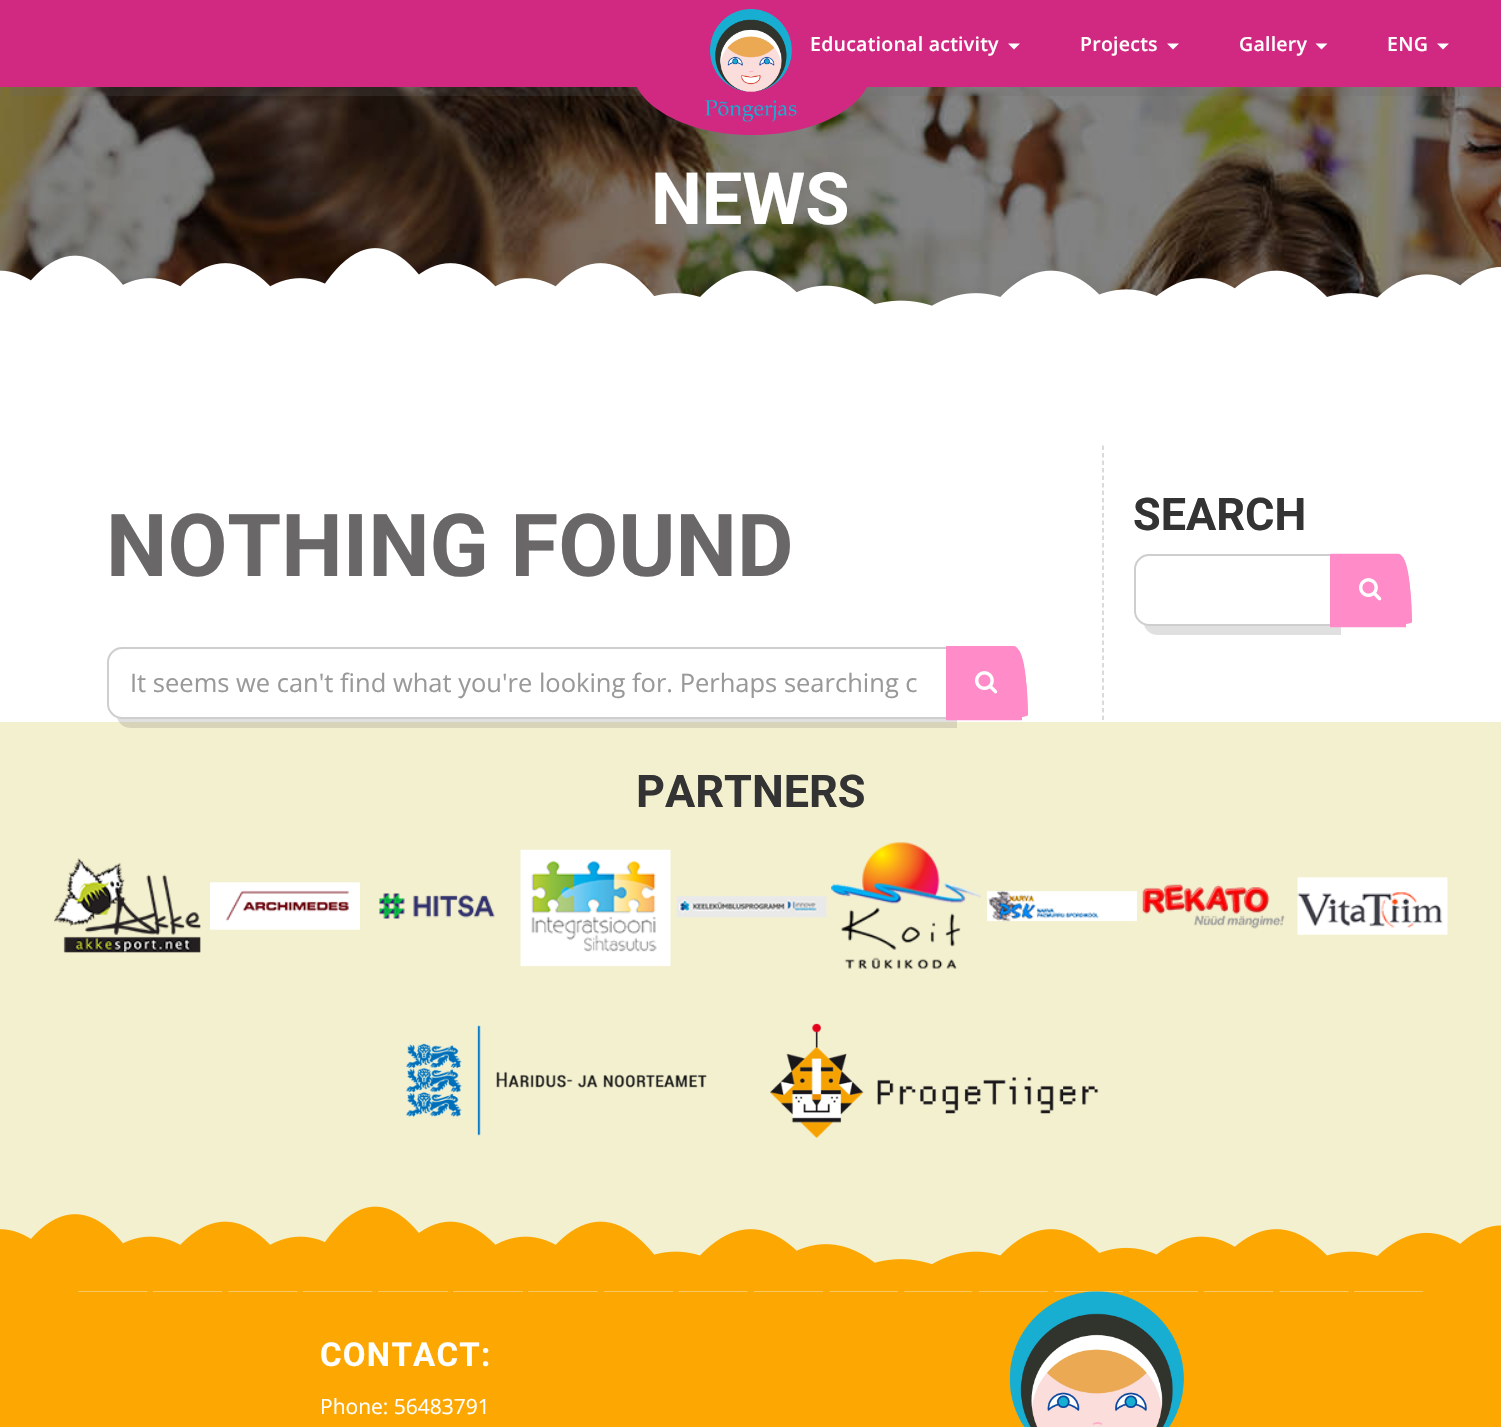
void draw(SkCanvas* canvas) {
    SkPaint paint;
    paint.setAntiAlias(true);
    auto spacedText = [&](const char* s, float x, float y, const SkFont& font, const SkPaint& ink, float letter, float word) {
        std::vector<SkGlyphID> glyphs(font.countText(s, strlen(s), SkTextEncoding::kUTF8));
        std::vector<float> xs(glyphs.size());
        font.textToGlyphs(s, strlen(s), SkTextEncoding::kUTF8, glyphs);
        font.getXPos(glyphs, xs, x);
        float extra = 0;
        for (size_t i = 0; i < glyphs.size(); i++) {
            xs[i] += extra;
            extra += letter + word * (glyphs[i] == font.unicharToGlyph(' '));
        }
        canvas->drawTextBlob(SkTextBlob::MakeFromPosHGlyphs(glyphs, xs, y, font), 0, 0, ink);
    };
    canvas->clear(0xFFFFFFFF);
    canvas->drawImageRect(SkImages::DeferredFromEncodedData(SkData::MakeFromFileName("img2.png")), SkRect::MakeXYWH(0, 87, 1501, 219), SkSamplingOptions());
    paint.setColor(0x33676666);
    canvas->drawPath(SkPathBuilder().moveTo(9, 87).lineTo(9, 96).lineTo(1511, 96).lineTo(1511, 9).lineTo(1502, 9).lineTo(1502, 87).close().detach(), paint);
    paint.setColor(0xFFD12981);
    canvas->drawRect(SkRect::MakeXYWH(0, 0, 1501, 87), paint);
    canvas->drawPath(SkPathBuilder().moveTo(632, 0).lineTo(872, 0).lineTo(872, 68).cubicTo(872, 105, 818, 135, 752, 135).cubicTo(685, 135, 632, 105, 632, 68).close().detach(), paint);
    canvas->drawImageRect(SkImages::DeferredFromEncodedData(SkData::MakeFromFileName("img1.png")), SkRect::MakeXYWH(704, 9, 93, 113), SkSamplingOptions());
    SkFont font1(fontMgr->matchFamilyStyle("Open Sans", SkFontStyle(600, SkFontStyle::kNormal_Width, SkFontStyle::kUpright_Slant)), 19.5f);
    font1.setSubpixel(true);
    paint.setColor(0xFFFFFFFF);
    spacedText("Educational activity", 810, 51, font1, paint, 0.25f, 0);
    canvas->drawPath(SkPathBuilder().moveTo(1008, 43.5f).lineTo(1020, 43.5f).lineTo(1014, 49.5f).close().detach(), paint);
    spacedText("Projects", 1080, 51, font1, paint, 0.25f, 0);
    canvas->drawPath(SkPathBuilder().moveTo(1167, 43.5f).lineTo(1179, 43.5f).lineTo(1173, 49.5f).close().detach(), paint);
    spacedText("Gallery", 1239, 51, font1, paint, 0.25f, 0);
    canvas->drawPath(SkPathBuilder().moveTo(1315.5f, 43.5f).lineTo(1327.5f, 43.5f).lineTo(1321.5f, 49.5f).close().detach(), paint);
    spacedText("ENG", 1387, 51, font1, paint, 0.25f, 0);
    canvas->drawPath(SkPathBuilder().moveTo(1437, 43.5f).lineTo(1449, 43.5f).lineTo(1443, 49.5f).close().detach(), paint);
    SkFont font2(fontMgr->matchFamilyStyle("Roboto", SkFontStyle::Bold()), 72);
    font2.setSubpixel(true);
    canvas->drawString("NEWS", 651, 224, font2, paint);
    canvas->drawImageRect(SkImages::DeferredFromEncodedData(SkData::MakeFromFileName("img3.png")), SkRect::MakeXYWH(0, 248, 1501, 85), SkSamplingOptions());
    paint.setStyle(SkPaint::kStroke_Style);
    paint.setStrokeWidth(1.5f);
    paint.setColor(0xFFCECECE);
    paint.setPathEffect(SkDashPathEffect::Make({{4.5f, 3}}, 0));
    canvas->drawPath(SkPathBuilder().moveTo(1103, 445.5f).lineTo(1103, 720).detach(), paint);
    paint.setPathEffect(nullptr);
    SkFont font3(fontMgr->matchFamilyStyle("Roboto", SkFontStyle::Bold()), 87);
    font3.setSubpixel(true);
    paint.setStyle(SkPaint::kFill_Style);
    paint.setColor(0xFF696767);
    canvas->drawString("NOTHING FOUND", 106, 576, font3, paint);
    paint.setColor(0xFFF3F0CF);
    canvas->drawRect(SkRect::MakeXYWH(0, 722, 1501, 570), paint);
    paint.setColor(0x33676666);
    canvas->drawPath(SkPathBuilder().moveTo(117, 718).cubicTo(119, 724, 124, 728, 131, 728).lineTo(957, 728).lineTo(957, 656).lineTo(948, 656).lineTo(948, 718).lineTo(122, 718).close().detach(), paint);
    paint.setColor(0xFFFFFFFF);
    canvas->drawPath(SkPathBuilder().moveTo(122, 648).lineTo(947, 648).lineTo(947, 718).lineTo(122, 718).cubicTo(114.5f, 718, 108, 711.5f, 108, 704).lineTo(108, 662).cubicTo(108, 654.5f, 114.5f, 648, 122, 648).close().detach(), paint);
    paint.setStyle(SkPaint::kStroke_Style);
    paint.setStrokeWidth(2);
    paint.setColor(0xFFCECECE);
    canvas->drawPath(SkPathBuilder().moveTo(122, 648).lineTo(947, 648).lineTo(947, 718).lineTo(122, 718).cubicTo(114.5f, 718, 108, 711.5f, 108, 704).lineTo(108, 662).cubicTo(108, 654.5f, 114.5f, 648, 122, 648).close().detach(), paint);
    SkFont font4(fontMgr->matchFamilyStyle("Open Sans", SkFontStyle::Normal()), 25.5f);
    font4.setSubpixel(true);
    paint.setStyle(SkPaint::kFill_Style);
    paint.setColor(0xFF999999);
    canvas->drawString("It seems we can't find what you're looking for. Perhaps searching c", 130, 692, font4, paint);
    paint.setColor(0xFFFF8BC8);
    canvas->drawPath(SkPathBuilder().moveTo(946, 646).lineTo(1014, 646).cubicTo(1021, 646, 1028, 677, 1028, 715).cubicTo(1028, 718, 997, 720, 959, 720).lineTo(946, 720).close().detach(), paint);
    paint.setStyle(SkPaint::kStroke_Style);
    paint.setStrokeWidth(10.5f);
    canvas->drawPath(SkPathBuilder().moveTo(952, 652).lineTo(1013.5f, 652).cubicTo(1018.5f, 652, 1022, 680, 1022, 715.5f).lineTo(1022, 715).lineTo(952, 715).close().detach(), paint);
    canvas->drawImageRect(SkImages::DeferredFromEncodedData(SkData::MakeFromFileName("img4.png")), SkRect::MakeXYWH(975, 671, 23, 23), SkSamplingOptions());
    SkFont font5(fontMgr->matchFamilyStyle("Roboto", SkFontStyle::Bold()), 45);
    font5.setSubpixel(true);
    paint.setStyle(SkPaint::kFill_Style);
    paint.setColor(0xFF333333);
    canvas->drawString("SEARCH", 1133, 530, font5, paint);
    paint.setColor(0xFFE1E0E0);
    canvas->drawPath(SkPathBuilder().moveTo(1144, 625).cubicTo(1146, 631, 1151, 635, 1158, 635).lineTo(1341, 635).lineTo(1341, 563).lineTo(1332, 563).lineTo(1332, 626).lineTo(1149, 626).close().detach(), paint);
    paint.setColor(0xFFFFFFFF);
    canvas->drawPath(SkPathBuilder().moveTo(1149, 555).lineTo(1331, 555).lineTo(1331, 625).lineTo(1149, 625).cubicTo(1141.5f, 625, 1135, 618.5f, 1135, 611).lineTo(1135, 569).cubicTo(1135, 561.5f, 1141.5f, 555, 1149, 555).close().detach(), paint);
    paint.setStyle(SkPaint::kStroke_Style);
    paint.setStrokeWidth(2);
    paint.setColor(0xFFCECECE);
    canvas->drawPath(SkPathBuilder().moveTo(1149, 555).lineTo(1331, 555).lineTo(1331, 625).lineTo(1149, 625).cubicTo(1141.5f, 625, 1135, 618.5f, 1135, 611).lineTo(1135, 569).cubicTo(1135, 561.5f, 1141.5f, 555, 1149, 555).close().detach(), paint);
    paint.setStyle(SkPaint::kFill_Style);
    paint.setColor(0xFFFF8BC8);
    canvas->drawPath(SkPathBuilder().moveTo(1330, 554).lineTo(1398, 554).cubicTo(1405, 554, 1412, 584, 1412, 622).cubicTo(1412, 625, 1381, 627, 1343, 627).lineTo(1330, 627).close().detach(), paint);
    paint.setStyle(SkPaint::kStroke_Style);
    paint.setStrokeWidth(10.5f);
    canvas->drawPath(SkPathBuilder().moveTo(1336, 559).lineTo(1397.5f, 559).cubicTo(1402.5f, 559, 1406, 587, 1406, 622.5f).lineTo(1406, 622).lineTo(1336, 622).close().detach(), paint);
    canvas->drawImageRect(SkImages::DeferredFromEncodedData(SkData::MakeFromFileName("img4.png")), SkRect::MakeXYWH(1359, 578, 23, 23), SkSamplingOptions());
    paint.setStyle(SkPaint::kFill_Style);
    paint.setColor(0xFF333333);
    canvas->drawString("PARTNERS", 636, 807, font5, paint);
    canvas->drawImageRect(SkImages::DeferredFromEncodedData(SkData::MakeFromFileName("img5.png")), SkRect::MakeXYWH(54, 858, 147, 95), SkSamplingOptions());
    canvas->drawImageRect(SkImages::DeferredFromEncodedData(SkData::MakeFromFileName("img6.png")), SkRect::MakeXYWH(210, 882, 150, 48), SkSamplingOptions());
    canvas->drawImageRect(SkImages::DeferredFromEncodedData(SkData::MakeFromFileName("img7.png")), SkRect::MakeXYWH(379, 893, 116, 26), SkSamplingOptions());
    canvas->drawImageRect(SkImages::DeferredFromEncodedData(SkData::MakeFromFileName("img8.png")), SkRect::MakeXYWH(520, 849, 151, 118), SkSamplingOptions());
    canvas->drawImageRect(SkImages::DeferredFromEncodedData(SkData::MakeFromFileName("img9.png")), SkRect::MakeXYWH(676, 896, 151, 22), SkSamplingOptions());
    canvas->drawImageRect(SkImages::DeferredFromEncodedData(SkData::MakeFromFileName("img10.png")), SkRect::MakeXYWH(831, 842, 150, 127), SkSamplingOptions());
    canvas->drawImageRect(SkImages::DeferredFromEncodedData(SkData::MakeFromFileName("img11.png")), SkRect::MakeXYWH(987, 890, 150, 32), SkSamplingOptions());
    canvas->drawImageRect(SkImages::DeferredFromEncodedData(SkData::MakeFromFileName("img12.png")), SkRect::MakeXYWH(1142, 884, 143, 45), SkSamplingOptions());
    canvas->drawImageRect(SkImages::DeferredFromEncodedData(SkData::MakeFromFileName("img13.png")), SkRect::MakeXYWH(1297, 877, 151, 58), SkSamplingOptions());
    canvas->drawImageRect(SkImages::DeferredFromEncodedData(SkData::MakeFromFileName("img14.png")), SkRect::MakeXYWH(405, 1025, 302, 111), SkSamplingOptions());
    canvas->drawImageRect(SkImages::DeferredFromEncodedData(SkData::MakeFromFileName("img15.png")), SkRect::MakeXYWH(770, 1023, 329, 115), SkSamplingOptions());
    canvas->drawImageRect(SkImages::DeferredFromEncodedData(SkData::MakeFromFileName("img16.png")), SkRect::MakeXYWH(0, 1206, 1501, 86), SkSamplingOptions());
    paint.setColor(0xFFFDA702);
    canvas->drawRect(SkRect::MakeXYWH(0, 1292, 1501, 135), paint);
    SkFont font6(fontMgr->matchFamilyStyle("Roboto", SkFontStyle::Bold()), 33);
    font6.setSubpixel(true);
    paint.setColor(0xFFFFFFFF);
    spacedText("CONTACT:", 320, 1366, font6, paint, 1.25f, 0);
    SkFont font7(fontMgr->matchFamilyStyle("Open Sans", SkFontStyle::Normal()), 21);
    font7.setSubpixel(true);
    canvas->drawString("Phone: 56483791", 320, 1414, font7, paint);
    canvas->drawImageRect(SkImages::DeferredFromEncodedData(SkData::MakeFromFileName("img17.png")), SkRect::MakeXYWH(1009, 1291, 175, 136), SkSamplingOptions());
}
